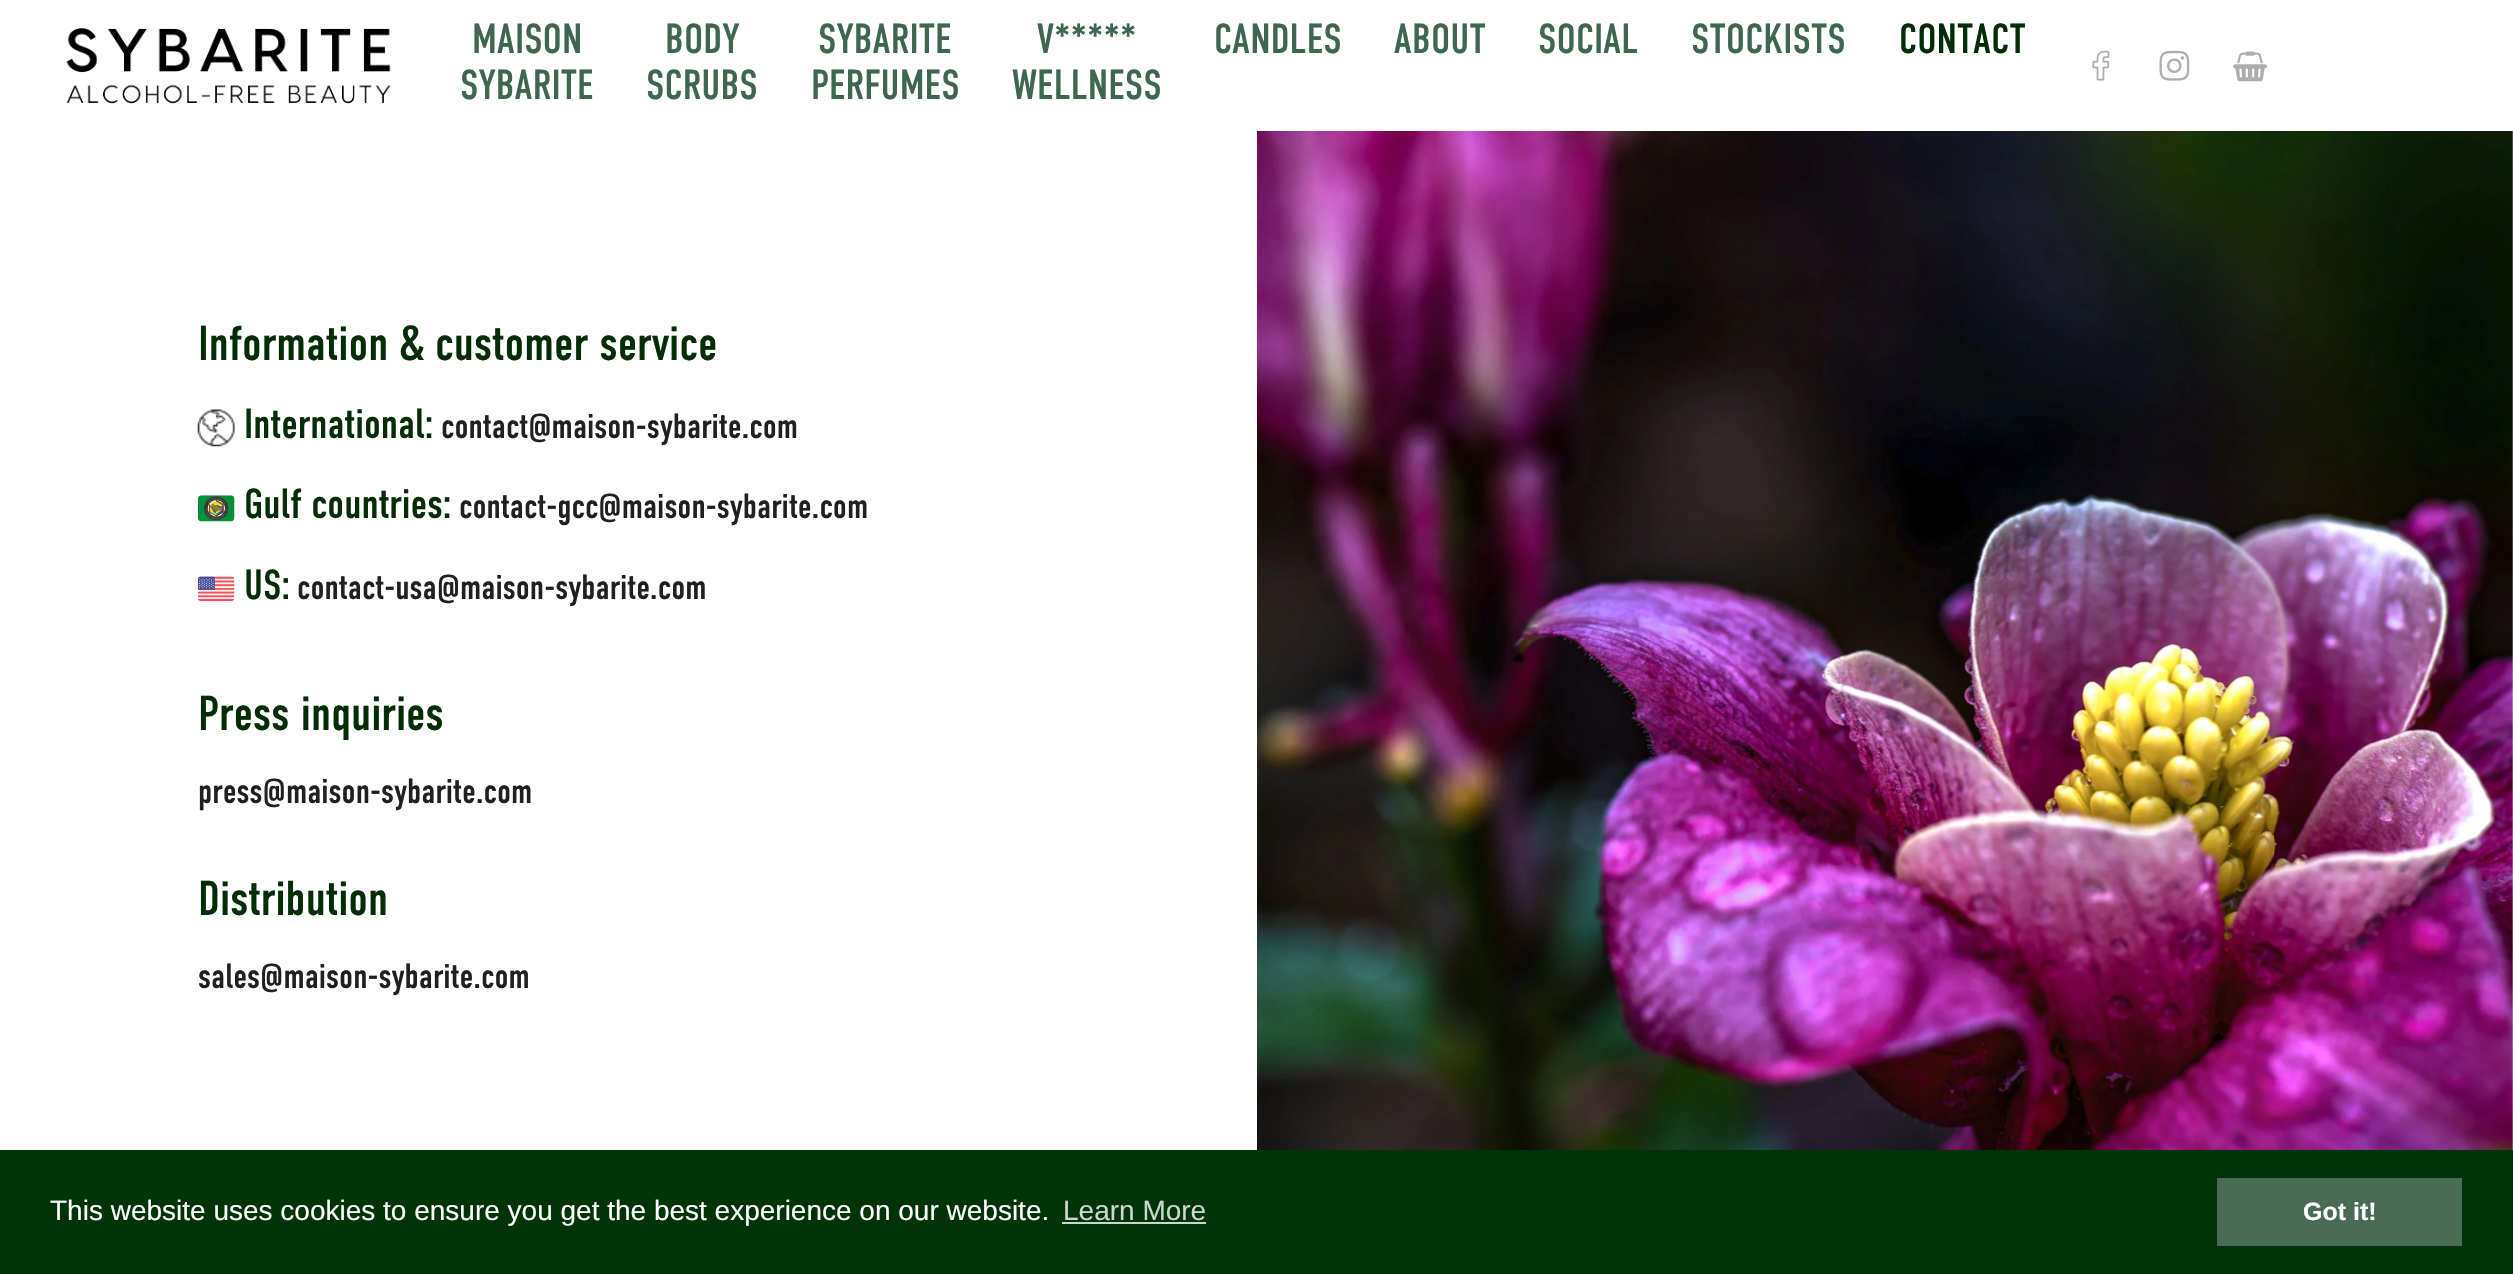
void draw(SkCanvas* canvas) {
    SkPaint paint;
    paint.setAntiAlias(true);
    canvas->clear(0xFFFFFFFF);
    canvas->drawImageRect(SkImages::DeferredFromEncodedData(SkData::MakeFromFileName("img1.png")), SkRect::MakeXYWH(66, 27, 325, 77), SkSamplingOptions());
    SkFont font1(fontMgr->matchFamilyStyle("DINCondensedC", SkFontStyle::Normal()), 42);
    font1.setSubpixel(true);
    paint.setColor(0xFF3F674F);
    canvas->drawString("MAISON", 472, 53, font1, paint);
    canvas->drawString("SYBARITE", 460, 99, font1, paint);
    canvas->drawString("BODY", 665, 53, font1, paint);
    canvas->drawString("SCRUBS", 646, 99, font1, paint);
    canvas->drawString("SYBARITE", 818, 53, font1, paint);
    canvas->drawString("PERFUMES", 811, 99, font1, paint);
    canvas->drawString("V*****", 1037, 53, font1, paint);
    canvas->drawString("WELLNESS", 1012, 99, font1, paint);
    canvas->drawString("CANDLES", 1214, 53, font1, paint);
    canvas->drawString("ABOUT", 1394, 53, font1, paint);
    canvas->drawString("SOCIAL", 1538, 53, font1, paint);
    canvas->drawString("STOCKISTS", 1691, 53, font1, paint);
    paint.setColor(0xFF032D07);
    canvas->drawString("CONTACT", 1899, 53, font1, paint);
    canvas->drawImageRect(SkImages::DeferredFromEncodedData(SkData::MakeFromFileName("img2.png")), SkRect::MakeXYWH(2092, 50, 18, 31), SkSamplingOptions());
    canvas->drawImageRect(SkImages::DeferredFromEncodedData(SkData::MakeFromFileName("img3.png")), SkRect::MakeXYWH(2159, 50, 31, 31), SkSamplingOptions());
    canvas->drawImageRect(SkImages::DeferredFromEncodedData(SkData::MakeFromFileName("img4.png")), SkRect::MakeXYWH(2233, 51, 34, 31), SkSamplingOptions());
    SkFont font2(fontMgr->matchFamilyStyle("DINCondensedC", SkFontStyle::Normal()), 49);
    font2.setSubpixel(true);
    canvas->drawString("Information & customer service", 198, 360, font2, paint);
    canvas->drawImageRect(SkImages::DeferredFromEncodedData(SkData::MakeFromFileName("img5.png")), SkRect::MakeXYWH(197, 409, 38, 38), SkSamplingOptions());
    canvas->drawString("International:", 244, 438, font1, paint);
    SkFont font3(fontMgr->matchFamilyStyle("DINCondensedC", SkFontStyle::Normal()), 35);
    font3.setSubpixel(true);
    paint.setColor(0xFF202020);
    canvas->drawString("contact@maison-sybarite.com", 441, 438, font3, paint);
    canvas->drawImageRect(SkImages::DeferredFromEncodedData(SkData::MakeFromFileName("img6.png")), SkRect::MakeXYWH(198, 495, 37, 27), SkSamplingOptions());
    paint.setColor(0xFF032D07);
    canvas->drawString("Gulf countries:", 244, 518, font1, paint);
    paint.setColor(0xFF202020);
    canvas->drawString("contact-gcc@maison-sybarite.com", 459, 518, font3, paint);
    canvas->drawImageRect(SkImages::DeferredFromEncodedData(SkData::MakeFromFileName("img7.png")), SkRect::MakeXYWH(198, 576, 37, 25), SkSamplingOptions());
    paint.setColor(0xFF032D07);
    canvas->drawString("US:", 244, 599, font1, paint);
    paint.setColor(0xFF202020);
    canvas->drawString("contact-usa@maison-sybarite.com", 297, 599, font3, paint);
    paint.setColor(0xFF032D07);
    canvas->drawString("Press inquiries", 198, 730, font2, paint);
    paint.setColor(0xFF202020);
    canvas->drawString("press@maison-sybarite.com", 198, 803, font3, paint);
    paint.setColor(0xFF032D07);
    canvas->drawString("Distribution", 198, 915, font2, paint);
    paint.setColor(0xFF202020);
    canvas->drawString("sales@maison-sybarite.com", 198, 988, font3, paint);
    canvas->drawImageRect(SkImages::DeferredFromEncodedData(SkData::MakeFromFileName("img8.png")), SkRect::MakeXYWH(1257, 131, 1256, 1019), SkSamplingOptions());
    paint.setColor(0xFF003307);
    canvas->drawRect(SkRect::MakeXYWH(0, 1150, 2513, 124), paint);
    SkFont font4(fontMgr->matchFamilyStyle("Liberation Sans", SkFontStyle::Normal()), 28);
    font4.setSubpixel(true);
    paint.setColor(0xFFFFFFFF);
    canvas->drawString("This website uses cookies to ensure you get the best experience on our website.", 50, 1220, font4, paint);
    paint.setColor(0xFFCCD6CD);
    canvas->drawString("Learn More", 1063, 1220, font4, paint);
    canvas->drawRect(SkRect::MakeXYWH(1062, 1222, 144, 2), paint);
    paint.setColor(0xFF496A54);
    canvas->drawRect(SkRect::MakeXYWH(2217, 1178, 245, 68), paint);
    SkFont font5(fontMgr->matchFamilyStyle("Liberation Sans", SkFontStyle::Bold()), 25);
    font5.setSubpixel(true);
    paint.setColor(0xFFFFFFFF);
    canvas->drawString("Got it!", 2303, 1220, font5, paint);
}
